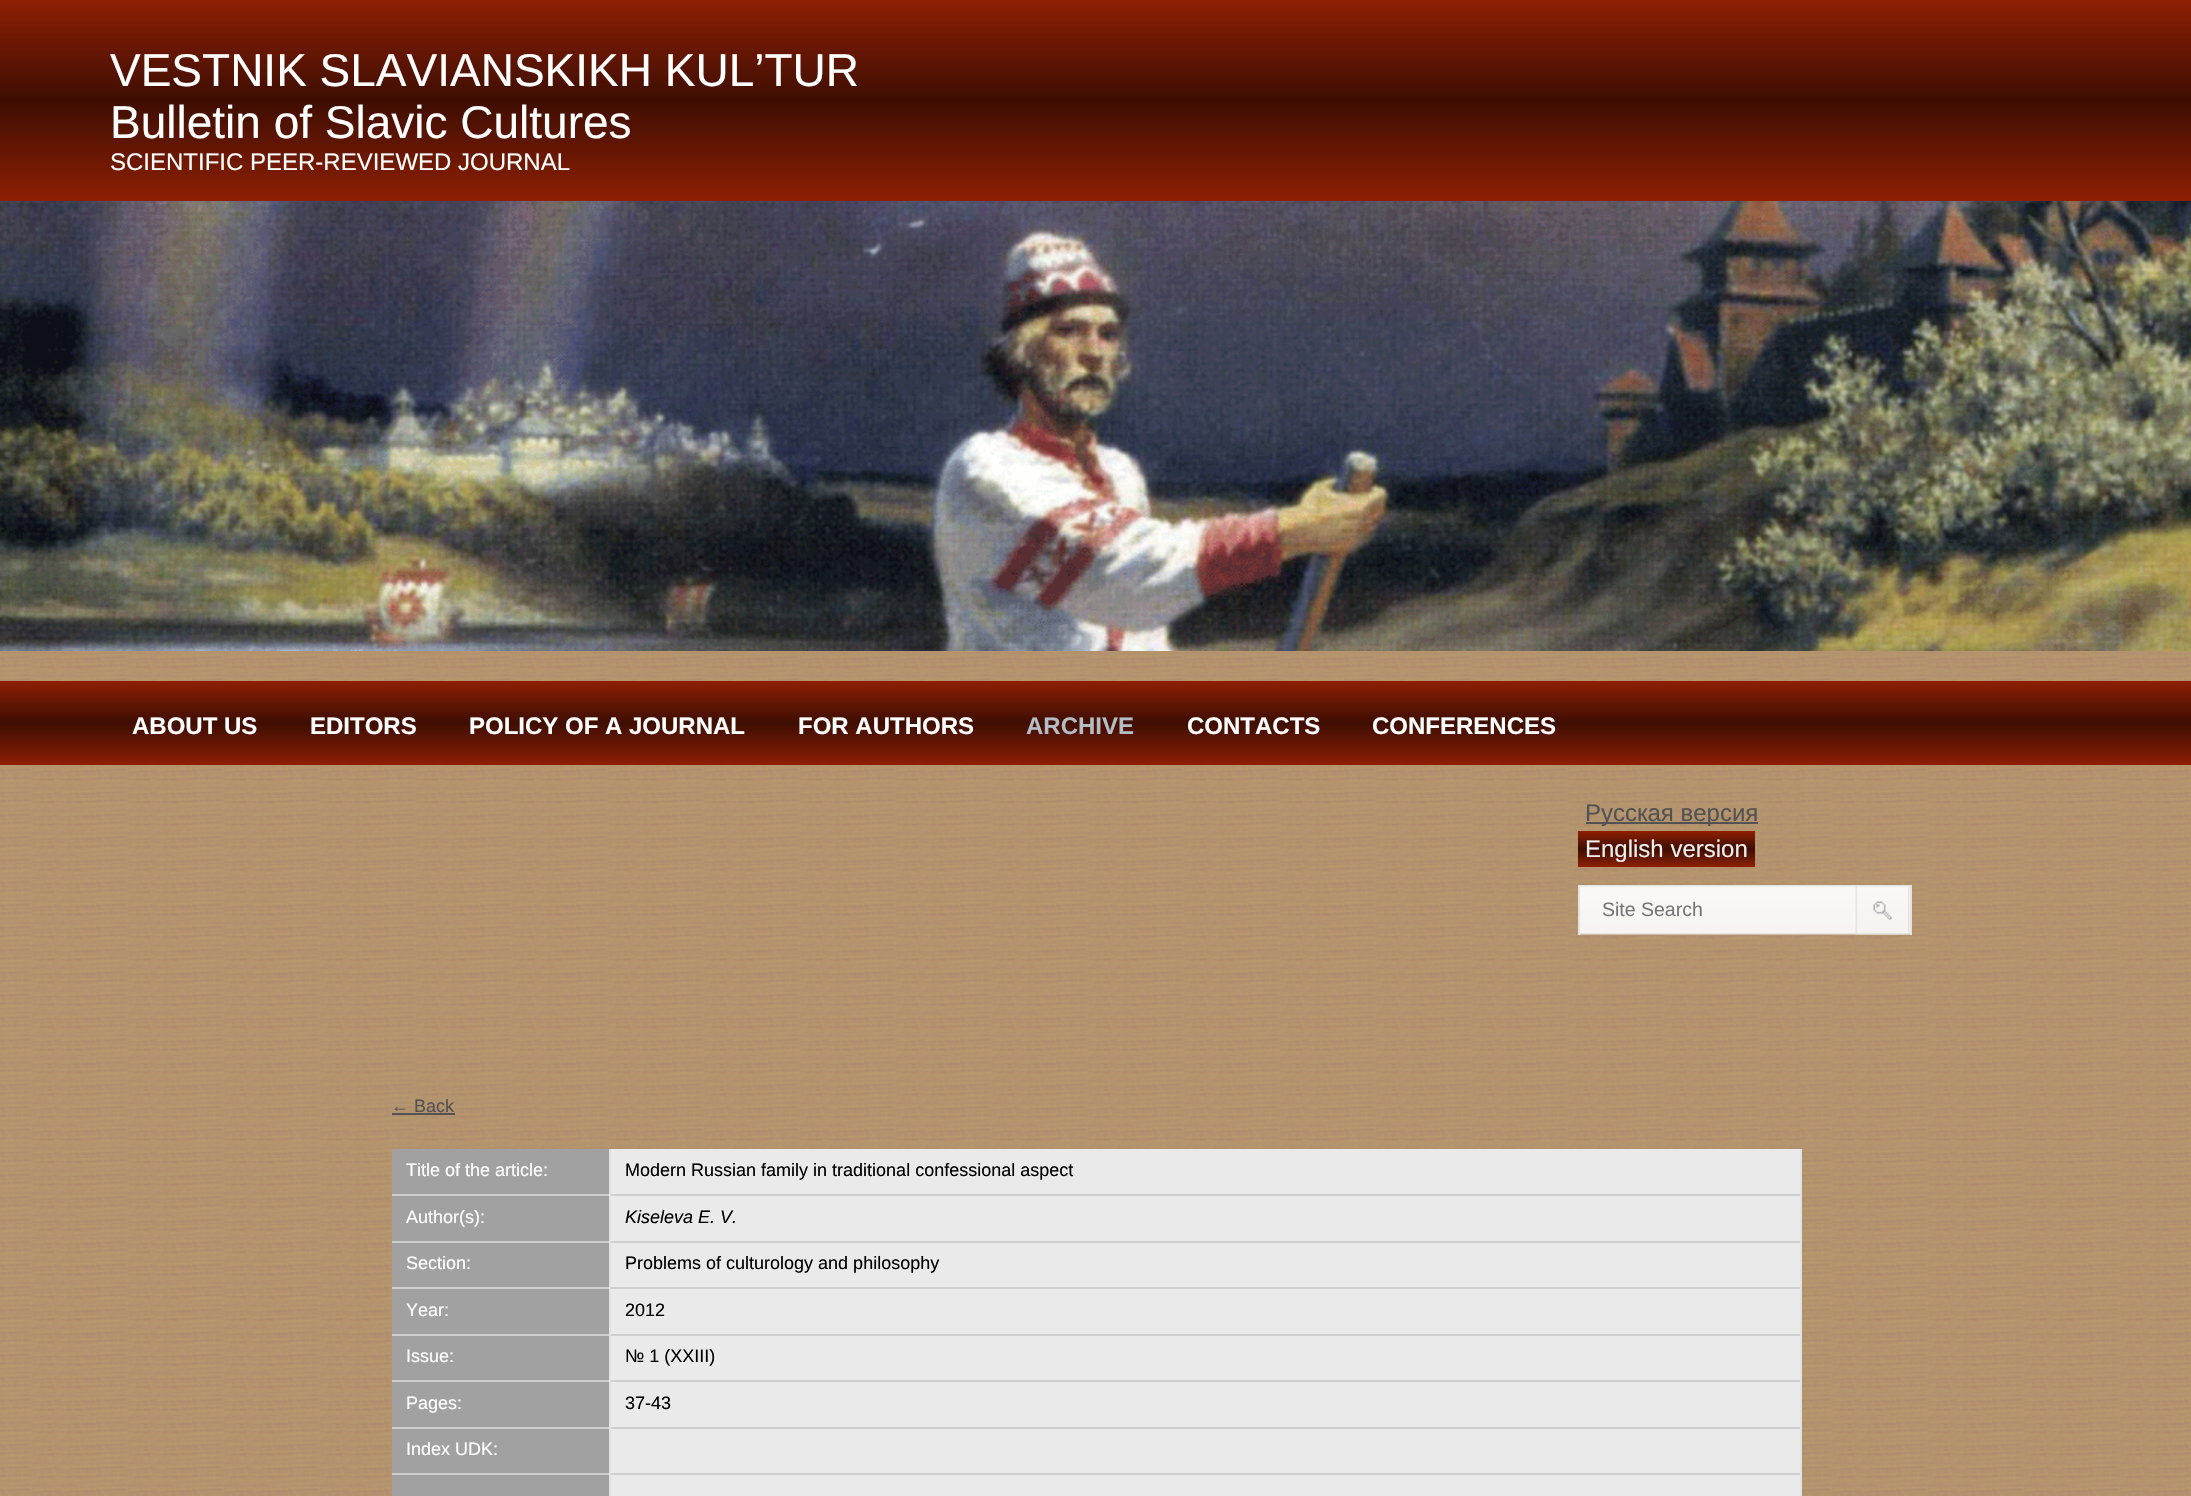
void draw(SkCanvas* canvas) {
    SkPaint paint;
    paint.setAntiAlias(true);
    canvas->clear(0xFFFFFFFF);
    canvas->drawImageRect(SkImages::DeferredFromEncodedData(SkData::MakeFromFileName("img1.png")), SkRect::MakeXYWH(0, 651, 2191, 845), SkSamplingOptions());
    {
        const SkColor colors[] = {0xFF8E1F04, 0xFF3E0E02, 0xFF8E1F04};
        const float stops[] = {0, 0.5f, 1};
        const SkPoint ends[] = {{1096, 0}, {1096, 201}};
        paint.setShader(SkGradientShader::MakeLinear(ends, colors, stops, 3, SkTileMode::kClamp));
        paint.setAlpha(255);
    }
    canvas->drawRect(SkRect::MakeXYWH(0, 0, 2191, 201), paint);
    SkFont font1(fontMgr->matchFamilyStyle("Liberation Sans", SkFontStyle::Normal()), 46);
    font1.setSubpixel(true);
    paint.setShader(nullptr);
    paint.setColor(0xFFFFFFFF);
    canvas->drawString("VESTNIK SLAVIANSKIKH KUL’TUR", 110, 86, font1, paint);
    canvas->drawString("Bulletin of Slavic Cultures", 110, 138, font1, paint);
    SkFont font2(fontMgr->matchFamilyStyle("Liberation Sans", SkFontStyle::Normal()), 24);
    font2.setSubpixel(true);
    canvas->drawString("SCIENTIFIC PEER-REVIEWED JOURNAL", 110, 170, font2, paint);
    canvas->drawImageRect(SkImages::DeferredFromEncodedData(SkData::MakeFromFileName("img2.png")), SkRect::MakeXYWH(0, 201, 2191, 450), SkSamplingOptions());
    {
        const SkColor colors[] = {0xFF8E1F04, 0xFF3E0E02, 0xFF8E1F04};
        const float stops[] = {0, 0.5f, 1};
        const SkPoint ends[] = {{1096, 681}, {1096, 765}};
        paint.setShader(SkGradientShader::MakeLinear(ends, colors, stops, 3, SkTileMode::kClamp));
        paint.setAlpha(255);
    }
    canvas->drawRect(SkRect::MakeXYWH(0, 681, 2191, 84), paint);
    SkFont font3(fontMgr->matchFamilyStyle("Liberation Sans", SkFontStyle::Bold()), 24);
    font3.setSubpixel(true);
    paint.setShader(nullptr);
    paint.setColor(0xFFFFFFFF);
    canvas->drawString("ABOUT US", 132, 734, font3, paint);
    canvas->drawString("EDITORS", 310, 734, font3, paint);
    canvas->drawString("POLICY OF A JOURNAL", 469, 734, font3, paint);
    canvas->drawString("FOR AUTHORS", 798, 734, font3, paint);
    paint.setColor(0xFFB4BCC5);
    canvas->drawString("ARCHIVE", 1026, 734, font3, paint);
    paint.setColor(0xFFFFFFFF);
    canvas->drawString("CONTACTS", 1187, 734, font3, paint);
    canvas->drawString("CONFERENCES", 1372, 734, font3, paint);
    paint.setColor(0xFF525252);
    canvas->drawRect(SkRect::MakeXYWH(1586, 822, 172, 2), paint);
    canvas->drawString("Русская версия", 1585, 821, font2, paint);
    {
        const SkColor colors[] = {0xFF8E1F04, 0xFF3E0E02, 0xFF8E1F04};
        const float stops[] = {0, 0.5f, 1};
        const SkPoint ends[] = {{1667, 831}, {1667, 867}};
        paint.setShader(SkGradientShader::MakeLinear(ends, colors, stops, 3, SkTileMode::kClamp));
        paint.setAlpha(255);
    }
    canvas->drawRect(SkRect::MakeXYWH(1578, 831, 177, 36), paint);
    paint.setShader(nullptr);
    paint.setColor(0xFFEEEEEE);
    canvas->drawString("English version", 1585, 857, font2, paint);
    canvas->drawImageRect(SkImages::DeferredFromEncodedData(SkData::MakeFromFileName("img3.png")), SkRect::MakeXYWH(1580, 885, 330, 50), SkSamplingOptions());
    paint.setColor(0xFFE4E3DF);
    canvas->drawRect(SkRect::MakeXYWH(1910, 885, 2, 50), paint);
    canvas->drawRect(SkRect::MakeXYWH(1578, 885, 2, 50), paint);
    SkFont font4(fontMgr->matchFamilyStyle("Liberation Sans", SkFontStyle::Normal()), 19.5f);
    font4.setSubpixel(true);
    paint.setColor(0xFF757575);
    canvas->drawString("Site Search", 1602, 916, font4, paint);
    canvas->drawImageRect(SkImages::DeferredFromEncodedData(SkData::MakeFromFileName("img4.png")), SkRect::MakeXYWH(1855, 886, 55, 49), SkSamplingOptions());
    SkFont font5(fontMgr->matchFamilyStyle("Liberation Sans", SkFontStyle::Normal()), 18);
    font5.setSubpixel(true);
    paint.setColor(0xFF525252);
    canvas->drawString("← Back", 391, 1112, font5, paint);
    canvas->drawRect(SkRect::MakeXYWH(392, 1113, 63, 2), paint);
    paint.setColor(0xFFEAEAEA);
    canvas->drawRect(SkRect::MakeXYWH(611, 1475, 1189, 21), paint);
    paint.setColor(0xFFA1A1A1);
    canvas->drawRect(SkRect::MakeXYWH(392, 1475, 217, 21), paint);
    paint.setColor(0xFFCFCFCF);
    canvas->drawRect(SkRect::MakeXYWH(392, 1194, 1410, 2), paint);
    canvas->drawRect(SkRect::MakeXYWH(392, 1241, 1410, 2), paint);
    canvas->drawRect(SkRect::MakeXYWH(392, 1287, 1410, 2), paint);
    canvas->drawRect(SkRect::MakeXYWH(392, 1334, 1410, 2), paint);
    canvas->drawRect(SkRect::MakeXYWH(392, 1380, 1410, 2), paint);
    canvas->drawRect(SkRect::MakeXYWH(392, 1427, 1410, 2), paint);
    canvas->drawRect(SkRect::MakeXYWH(392, 1473, 1410, 2), paint);
    paint.setColor(0xFFE3E3E3);
    canvas->drawRect(SkRect::MakeXYWH(609, 1149, 2, 347), paint);
    canvas->drawRect(SkRect::MakeXYWH(1800, 1149, 2, 347), paint);
    paint.setColor(0xFFEAEAEA);
    canvas->drawRect(SkRect::MakeXYWH(611, 1149, 1189, 45), paint);
    paint.setColor(0xFFA1A1A1);
    canvas->drawRect(SkRect::MakeXYWH(392, 1149, 217, 45), paint);
    paint.setColor(0xFFFFFFFF);
    canvas->drawString("Title of the article:", 406, 1176, font5, paint);
    paint.setColor(0xFF000000);
    canvas->drawString("Modern Russian family in traditional confessional aspect", 625, 1176, font5, paint);
    paint.setColor(0xFFEAEAEA);
    canvas->drawRect(SkRect::MakeXYWH(611, 1196, 1189, 45), paint);
    paint.setColor(0xFFA1A1A1);
    canvas->drawRect(SkRect::MakeXYWH(392, 1196, 217, 45), paint);
    paint.setColor(0xFFFFFFFF);
    canvas->drawString("Author(s):", 406, 1223, font5, paint);
    SkFont font6(fontMgr->matchFamilyStyle("Liberation Sans", SkFontStyle::Italic()), 18);
    font6.setSubpixel(true);
    paint.setColor(0xFF000000);
    canvas->drawString("Kiseleva E. V.", 625, 1223, font6, paint);
    paint.setColor(0xFFEAEAEA);
    canvas->drawRect(SkRect::MakeXYWH(611, 1243, 1189, 44), paint);
    paint.setColor(0xFFA1A1A1);
    canvas->drawRect(SkRect::MakeXYWH(392, 1243, 217, 44), paint);
    paint.setColor(0xFFFFFFFF);
    canvas->drawString("Section:", 406, 1269, font5, paint);
    paint.setColor(0xFF000000);
    canvas->drawString("Problems of culturology and philosophy", 625, 1269, font5, paint);
    paint.setColor(0xFFEAEAEA);
    canvas->drawRect(SkRect::MakeXYWH(611, 1289, 1189, 45), paint);
    paint.setColor(0xFFA1A1A1);
    canvas->drawRect(SkRect::MakeXYWH(392, 1289, 217, 45), paint);
    paint.setColor(0xFFFFFFFF);
    canvas->drawString("Year:", 406, 1316, font5, paint);
    paint.setColor(0xFF000000);
    canvas->drawString("2012", 625, 1316, font5, paint);
    paint.setColor(0xFFEAEAEA);
    canvas->drawRect(SkRect::MakeXYWH(611, 1336, 1189, 44), paint);
    paint.setColor(0xFFA1A1A1);
    canvas->drawRect(SkRect::MakeXYWH(392, 1336, 217, 44), paint);
    paint.setColor(0xFFFFFFFF);
    canvas->drawString("Issue:", 406, 1362, font5, paint);
    paint.setColor(0xFF000000);
    canvas->drawString("№ 1 (XXIII)", 625, 1362, font5, paint);
    paint.setColor(0xFFEAEAEA);
    canvas->drawRect(SkRect::MakeXYWH(611, 1382, 1189, 45), paint);
    paint.setColor(0xFFA1A1A1);
    canvas->drawRect(SkRect::MakeXYWH(392, 1382, 217, 45), paint);
    paint.setColor(0xFFFFFFFF);
    canvas->drawString("Pages:", 406, 1409, font5, paint);
    paint.setColor(0xFF000000);
    canvas->drawString("37-43", 625, 1409, font5, paint);
    paint.setColor(0xFFEAEAEA);
    canvas->drawRect(SkRect::MakeXYWH(611, 1429, 1189, 44), paint);
    paint.setColor(0xFFA1A1A1);
    canvas->drawRect(SkRect::MakeXYWH(392, 1429, 217, 44), paint);
    paint.setColor(0xFFFFFFFF);
    canvas->drawString("Index UDK:", 406, 1455, font5, paint);
}
